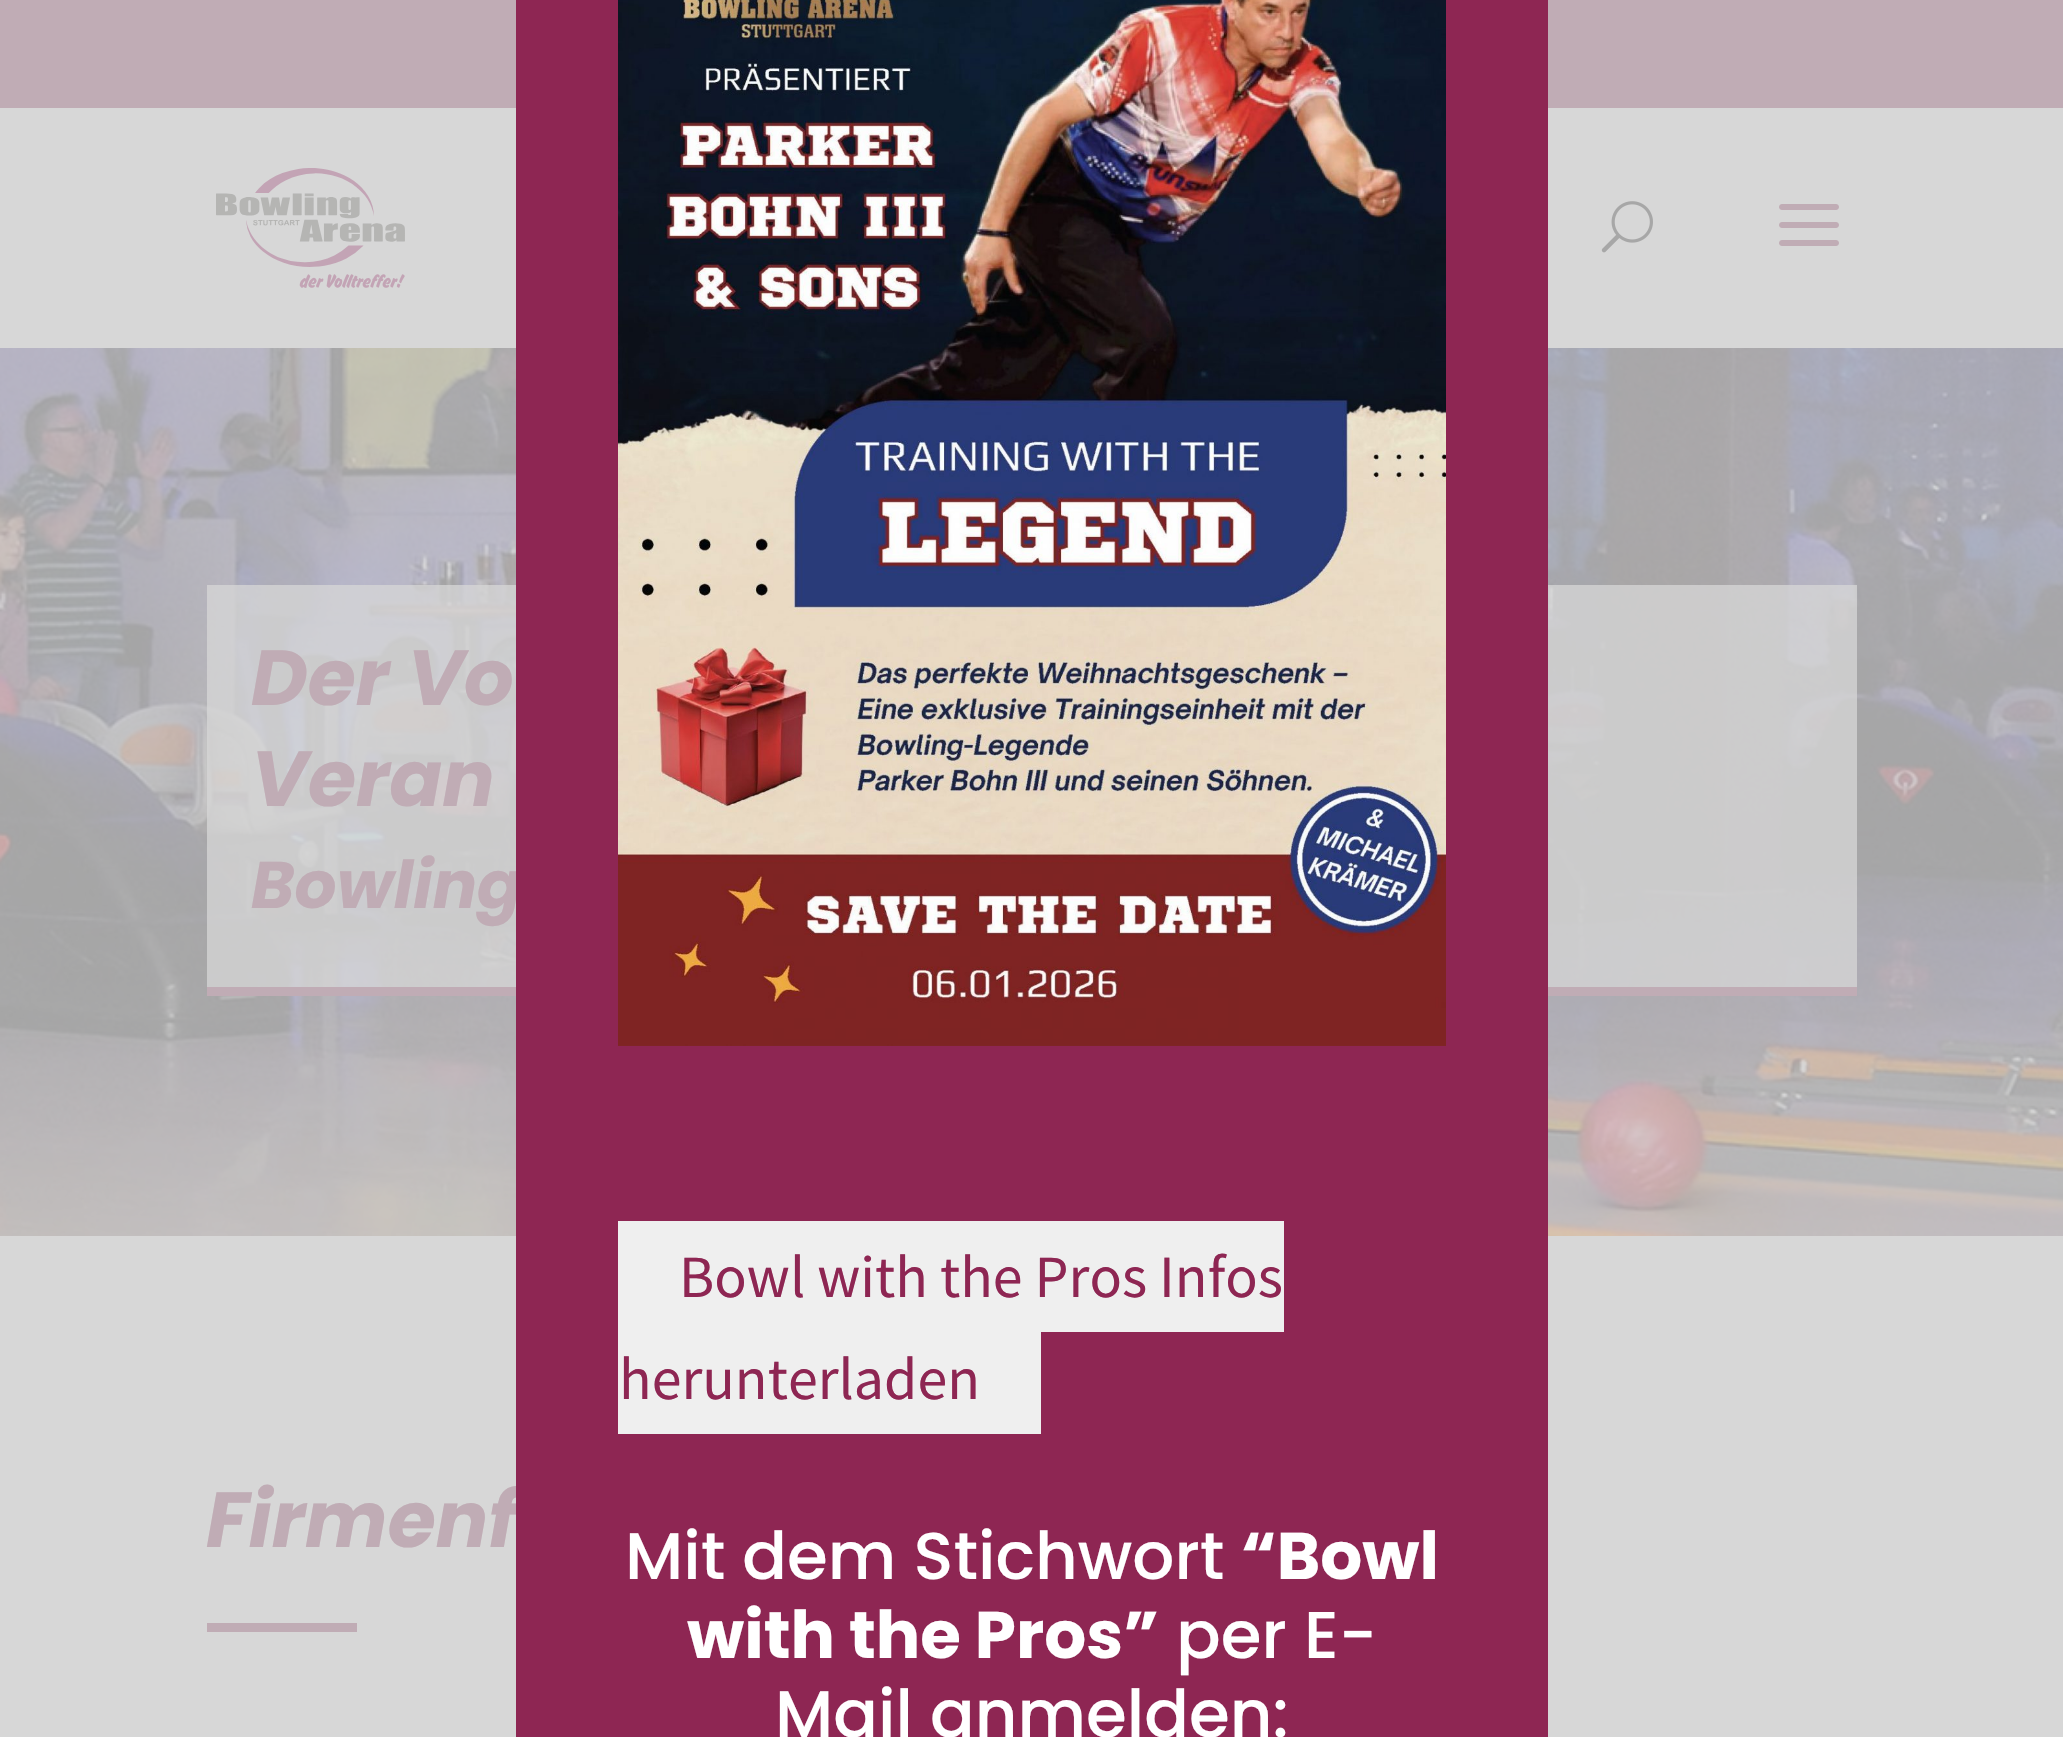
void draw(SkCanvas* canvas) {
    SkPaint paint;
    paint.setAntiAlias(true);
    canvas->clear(0xFFD7D7D7);
    paint.setColor(0xFFC0ACB5);
    canvas->drawRect(SkRect::MakeXYWH(0, 0, 2063, 108), paint);
    canvas->drawImageRect(SkImages::DeferredFromEncodedData(SkData::MakeFromFileName("img1.png")), SkRect::MakeXYWH(216, 168, 189, 120), SkSamplingOptions());
    canvas->drawImageRect(SkImages::DeferredFromEncodedData(SkData::MakeFromFileName("img2.png")), SkRect::MakeXYWH(1601, 201, 52, 52), SkSamplingOptions());
    canvas->drawImageRect(SkImages::DeferredFromEncodedData(SkData::MakeFromFileName("img3.png")), SkRect::MakeXYWH(1779, 204, 60, 42), SkSamplingOptions());
    canvas->drawImageRect(SkImages::DeferredFromEncodedData(SkData::MakeFromFileName("img4.png")), SkRect::MakeXYWH(0, 348, 2063, 888), SkSamplingOptions());
    paint.setColor(0xBFD7D7D7);
    canvas->drawRect(SkRect::MakeXYWH(207, 585, 1650, 402), paint);
    paint.setColor(0xFFC0ACB5);
    canvas->drawRect(SkRect::MakeXYWH(207, 987, 1650, 9), paint);
    SkFont font1(fontMgr->matchFamilyStyle("Poppins", SkFontStyle::BoldItalic()), 78);
    font1.setSubpixel(true);
    canvas->drawString("Der Vo", 251, 705, font1, paint);
    canvas->drawString("Veran", 251, 806, font1, paint);
    SkFont font2(fontMgr->matchFamilyStyle("Poppins", SkFontStyle::BoldItalic()), 66);
    font2.setSubpixel(true);
    canvas->drawString("Bowling", 251, 908, font2, paint);
    canvas->drawString("Firmenf", 206, 1547, font1, paint);
    canvas->drawRect(SkRect::MakeXYWH(207, 1623, 150, 9), paint);
    paint.setColor(0xFF8E2653);
    canvas->drawRect(SkRect::MakeXYWH(516, 0, 1032, 1737), paint);
    canvas->drawImageRect(SkImages::DeferredFromEncodedData(SkData::MakeFromFileName("img5.png")), SkRect::MakeXYWH(618, 0, 828, 1046), SkSamplingOptions());
    paint.setColor(0xFFEFEFEF);
    canvas->drawRect(SkRect::MakeXYWH(618, 1221, 666, 111), paint);
    SkFont font3(fontMgr->matchFamilyStyle("Source Sans Pro", SkFontStyle::Normal()), 60);
    font3.setSubpixel(true);
    paint.setColor(0xFF8E2653);
    canvas->drawString("Bowl with the Pros Infos", 679, 1297, font3, paint);
    paint.setColor(0xFFEFEFEF);
    canvas->drawRect(SkRect::MakeXYWH(618, 1332, 423, 102), paint);
    paint.setColor(0xFF8E2653);
    canvas->drawString("herunterladen", 619, 1399, font3, paint);
    SkFont font4(fontMgr->matchFamilyStyle("Poppins", SkFontStyle(500, SkFontStyle::kNormal_Width, SkFontStyle::kUpright_Slant)), 66);
    font4.setSubpixel(true);
    paint.setColor(0xFFFFFFFF);
    canvas->drawString("Mit dem Stichwort", 625, 1579, font4, paint);
    SkFont font5(fontMgr->matchFamilyStyle("Poppins", SkFontStyle::Bold()), 66);
    font5.setSubpixel(true);
    canvas->drawString("“Bowl", 1241, 1579, font5, paint);
    canvas->drawString("with the Pros”", 687, 1658, font5, paint);
    canvas->drawString("per E-", 1176, 1658, font4, paint);
    canvas->drawString("Mail anmelden:", 775, 1737, font4, paint);
}
